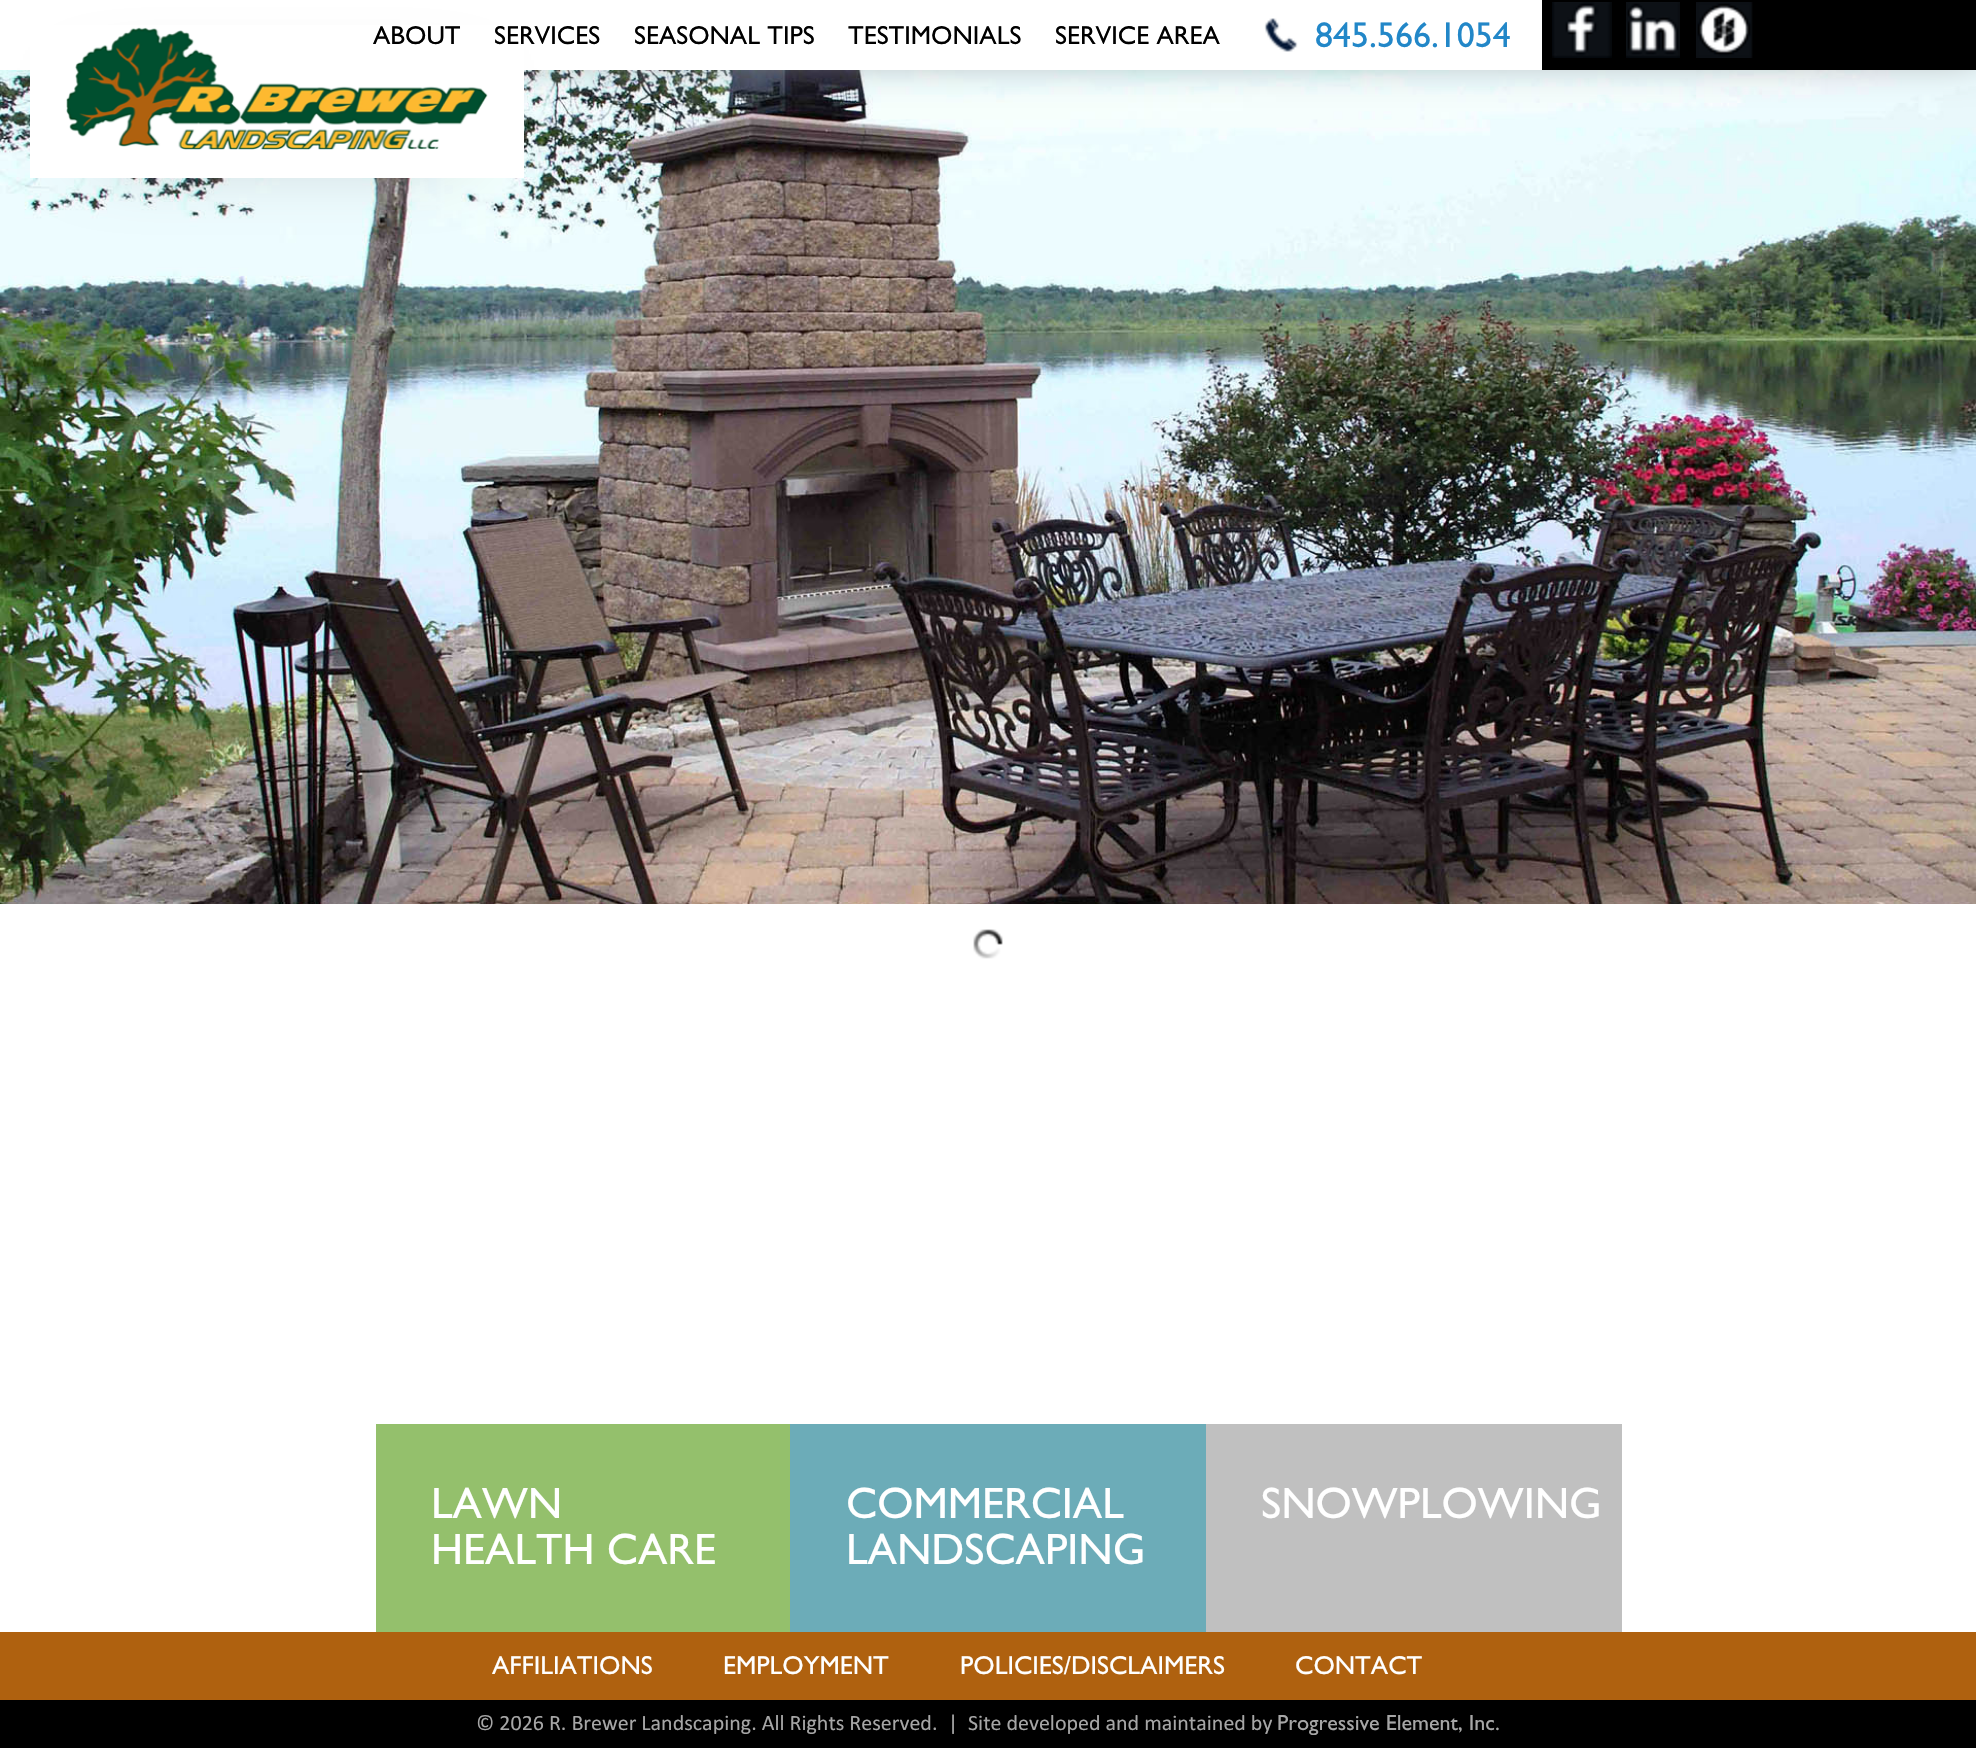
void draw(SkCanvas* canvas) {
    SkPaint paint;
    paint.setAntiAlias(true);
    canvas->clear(0xFFFFFFFF);
    canvas->drawImageRect(SkImages::DeferredFromEncodedData(SkData::MakeFromFileName("img7.png")), SkRect::MakeXYWH(0, 70, 1976, 834), SkSamplingOptions());
    paint.setColor(0xFF999999);
    paint.setMaskFilter(SkMaskFilter::MakeBlur(kNormal_SkBlurStyle, 22));
    canvas->drawRect(SkRect::MakeXYWH(34, 14, 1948, 42), paint);
    paint.setMaskFilter(nullptr);
    paint.setColor(0xFFFFFFFF);
    canvas->drawRect(SkRect::MakeXYWH(0, 0, 1542, 70), paint);
    paint.setColor(0xFF999999);
    paint.setMaskFilter(SkMaskFilter::MakeBlur(kNormal_SkBlurStyle, 40));
    canvas->drawRect(SkRect::MakeXYWH(100, 102, 354, 38), paint);
    paint.setMaskFilter(nullptr);
    paint.setColor(0xFFFFFFFF);
    canvas->drawRect(SkRect::MakeXYWH(30, 25, 494, 153), paint);
    canvas->drawImageRect(SkImages::DeferredFromEncodedData(SkData::MakeFromFileName("img1.png")), SkRect::MakeXYWH(66, 27, 422, 123), SkSamplingOptions());
    SkFont font1(fontMgr->matchFamilyStyle("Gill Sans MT", SkFontStyle::Normal()), 26);
    font1.setSubpixel(true);
    paint.setColor(0xFF000000);
    canvas->drawString("ABOUT", 373, 44, font1, paint);
    canvas->drawString("SERVICES", 494, 44, font1, paint);
    canvas->drawString("SEASONAL TIPS", 634, 44, font1, paint);
    canvas->drawString("TESTIMONIALS", 848, 44, font1, paint);
    canvas->drawString("SERVICE AREA", 1055, 44, font1, paint);
    canvas->drawImageRect(SkImages::DeferredFromEncodedData(SkData::MakeFromFileName("img2.png")), SkRect::MakeXYWH(1264, 18, 34, 34), SkSamplingOptions());
    SkFont font2(fontMgr->matchFamilyStyle("Gill Sans MT", SkFontStyle::Normal()), 36);
    font2.setSubpixel(true);
    paint.setColor(0xFF2287C8);
    canvas->drawString("845.566.1054", 1315, 47, font2, paint);
    paint.setColor(0xFF000000);
    canvas->drawRect(SkRect::MakeXYWH(1542, 0, 434, 70), paint);
    canvas->drawImageRect(SkImages::DeferredFromEncodedData(SkData::MakeFromFileName("img3.png")), SkRect::MakeXYWH(1552, 2, 60, 56), SkSamplingOptions());
    canvas->drawImageRect(SkImages::DeferredFromEncodedData(SkData::MakeFromFileName("img4.png")), SkRect::MakeXYWH(1626, 2, 54, 56), SkSamplingOptions());
    canvas->drawImageRect(SkImages::DeferredFromEncodedData(SkData::MakeFromFileName("img5.png")), SkRect::MakeXYWH(1696, 2, 57, 56), SkSamplingOptions());
    canvas->drawImageRect(SkImages::DeferredFromEncodedData(SkData::MakeFromFileName("img6.png")), SkRect::MakeXYWH(973, 929, 30, 30), SkSamplingOptions());
    paint.setColor(0xFF94C06C);
    canvas->drawRect(SkRect::MakeXYWH(376, 1424, 414, 208), paint);
    SkFont font3(fontMgr->matchFamilyStyle("Gill Sans MT", SkFontStyle::Normal()), 44);
    font3.setSubpixel(true);
    paint.setColor(0xFFFFFFFF);
    canvas->drawString("LAWN", 431, 1518, font3, paint);
    canvas->drawString("HEALTH CARE", 431, 1564, font3, paint);
    paint.setColor(0xFF6CACB8);
    canvas->drawRect(SkRect::MakeXYWH(790, 1424, 416, 208), paint);
    paint.setColor(0xFFFFFFFF);
    canvas->drawString("COMMERCIAL", 846, 1518, font3, paint);
    canvas->drawString("LANDSCAPING", 846, 1564, font3, paint);
    paint.setColor(0xFFC0C0C0);
    canvas->drawRect(SkRect::MakeXYWH(1206, 1424, 416, 208), paint);
    paint.setColor(0xFFFFFFFF);
    canvas->drawString("SNOWPLOWING", 1261, 1518, font3, paint);
    paint.setColor(0xFFAF610F);
    canvas->drawRect(SkRect::MakeXYWH(0, 1632, 1976, 68), paint);
    paint.setColor(0xFFFFFFFF);
    canvas->drawString("AFFILIATIONS", 492, 1674, font1, paint);
    canvas->drawString("EMPLOYMENT", 723, 1674, font1, paint);
    canvas->drawString("POLICIES/DISCLAIMERS", 960, 1674, font1, paint);
    canvas->drawString("CONTACT", 1295, 1674, font1, paint);
    paint.setColor(0xFF000000);
    canvas->drawRect(SkRect::MakeXYWH(0, 1700, 1976, 48), paint);
    SkFont font4(fontMgr->matchFamilyStyle("Calibri", SkFontStyle::Normal()), 22);
    font4.setSubpixel(true);
    paint.setColor(0xFFA6A6A6);
    canvas->drawString("© 2026 R. Brewer Landscaping. All Rights Reserved.", 476, 1730, font4, paint);
    canvas->drawString("|", 948, 1730, font4, paint);
    canvas->drawString("Site developed and maintained by", 968, 1730, font4, paint);
    SkFont font5(fontMgr->matchFamilyStyle("Gill Sans MT", SkFontStyle::Normal()), 22);
    font5.setSubpixel(true);
    canvas->drawString("Progressive Element, Inc.", 1277, 1730, font5, paint);
}
